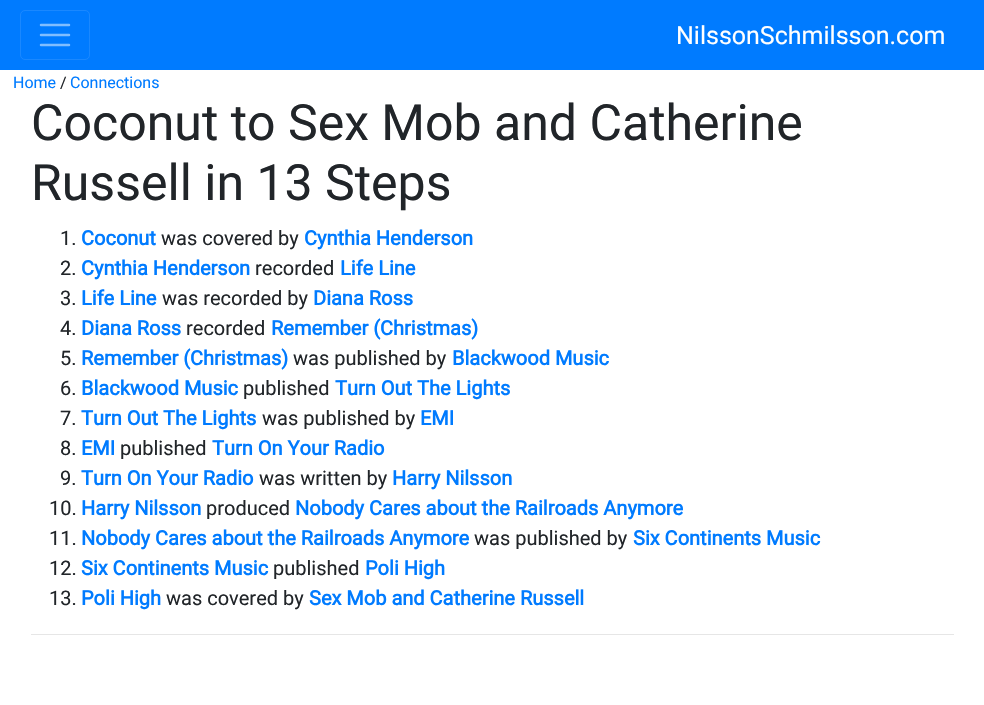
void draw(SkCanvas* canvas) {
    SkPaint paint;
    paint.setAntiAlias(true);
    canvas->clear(0xFFFFFFFF);
    paint.setColor(0xFF007BFF);
    canvas->drawRect(SkRect::MakeXYWH(0, 0, 984, 70), paint);
    paint.setStyle(SkPaint::kStroke_Style);
    paint.setStrokeWidth(1);
    paint.setColor(0xFF1A88FF);
    canvas->drawRoundRect(SkRect::MakeXYWH(20.5f, 10.5f, 69, 49), 4.5f, 4.5f, paint);
    paint.setStrokeWidth(2.5f);
    paint.setStrokeCap(SkPaint::kRound_Cap);
    paint.setColor(0xFF80BDFF);
    canvas->drawPath(SkPathBuilder().moveTo(41, 25).lineTo(69, 25).moveTo(41, 35).lineTo(69, 35).moveTo(41, 45).lineTo(69, 45).detach(), paint);
    SkFont font1(fontMgr->matchFamilyStyle("Roboto", SkFontStyle::Normal()), 25);
    font1.setSubpixel(true);
    paint.setStyle(SkPaint::kFill_Style);
    paint.setColor(0xFFFFFFFF);
    canvas->drawString("NilssonSchmilsson.com", 676, 44, font1, paint);
    SkFont font2(fontMgr->matchFamilyStyle("Roboto", SkFontStyle::Normal()), 16);
    font2.setSubpixel(true);
    paint.setColor(0xFF007BFF);
    canvas->drawString("Home", 13, 88, font2, paint);
    paint.setColor(0xFF212529);
    canvas->drawString("/", 60, 88, font2, paint);
    paint.setColor(0xFF007BFF);
    canvas->drawString("Connections", 70, 88, font2, paint);
    SkFont font3(fontMgr->matchFamilyStyle("Roboto", SkFontStyle::Normal()), 50);
    font3.setSubpixel(true);
    paint.setColor(0xFF212529);
    canvas->drawString("Coconut to Sex Mob and Catherine", 31, 140, font3, paint);
    canvas->drawString("Russell in 13 Steps", 31, 200, font3, paint);
    SkFont font4(fontMgr->matchFamilyStyle("Roboto", SkFontStyle::Normal()), 20);
    font4.setSubpixel(true);
    canvas->drawString("1.", 60, 245, font4, paint);
    SkFont font5(fontMgr->matchFamilyStyle("Roboto", SkFontStyle::Bold()), 20);
    font5.setSubpixel(true);
    paint.setColor(0xFF007BFF);
    canvas->drawString("Coconut", 81, 245, font5, paint);
    paint.setColor(0xFF212529);
    canvas->drawString("was covered by", 161, 245, font4, paint);
    paint.setColor(0xFF007BFF);
    canvas->drawString("Cynthia Henderson", 304, 245, font5, paint);
    paint.setColor(0xFF212529);
    canvas->drawString("2.", 60, 275, font4, paint);
    paint.setColor(0xFF007BFF);
    canvas->drawString("Cynthia Henderson", 81, 275, font5, paint);
    paint.setColor(0xFF212529);
    canvas->drawString("recorded", 255, 275, font4, paint);
    paint.setColor(0xFF007BFF);
    canvas->drawString("Life Line", 340, 275, font5, paint);
    paint.setColor(0xFF212529);
    canvas->drawString("3.", 60, 305, font4, paint);
    paint.setColor(0xFF007BFF);
    canvas->drawString("Life Line", 81, 305, font5, paint);
    paint.setColor(0xFF212529);
    canvas->drawString("was recorded by", 162, 305, font4, paint);
    paint.setColor(0xFF007BFF);
    canvas->drawString("Diana Ross", 313, 305, font5, paint);
    paint.setColor(0xFF212529);
    canvas->drawString("4.", 60, 335, font4, paint);
    paint.setColor(0xFF007BFF);
    canvas->drawString("Diana Ross", 81, 335, font5, paint);
    paint.setColor(0xFF212529);
    canvas->drawString("recorded", 186, 335, font4, paint);
    paint.setColor(0xFF007BFF);
    canvas->drawString("Remember (Christmas)", 271, 335, font5, paint);
    paint.setColor(0xFF212529);
    canvas->drawString("5.", 60, 365, font4, paint);
    paint.setColor(0xFF007BFF);
    canvas->drawString("Remember (Christmas)", 81, 365, font5, paint);
    paint.setColor(0xFF212529);
    canvas->drawString("was published by", 293, 365, font4, paint);
    paint.setColor(0xFF007BFF);
    canvas->drawString("Blackwood Music", 452, 365, font5, paint);
    paint.setColor(0xFF212529);
    canvas->drawString("6.", 60, 395, font4, paint);
    paint.setColor(0xFF007BFF);
    canvas->drawString("Blackwood Music", 81, 395, font5, paint);
    paint.setColor(0xFF212529);
    canvas->drawString("published", 243, 395, font4, paint);
    paint.setColor(0xFF007BFF);
    canvas->drawString("Turn Out The Lights", 335, 395, font5, paint);
    paint.setColor(0xFF212529);
    canvas->drawString("7.", 60, 425, font4, paint);
    paint.setColor(0xFF007BFF);
    canvas->drawString("Turn Out The Lights", 81, 425, font5, paint);
    paint.setColor(0xFF212529);
    canvas->drawString("was published by", 262, 425, font4, paint);
    paint.setColor(0xFF007BFF);
    canvas->drawString("EMI", 420, 425, font5, paint);
    paint.setColor(0xFF212529);
    canvas->drawString("8.", 60, 455, font4, paint);
    paint.setColor(0xFF007BFF);
    canvas->drawString("EMI", 81, 455, font5, paint);
    paint.setColor(0xFF212529);
    canvas->drawString("published", 120, 455, font4, paint);
    paint.setColor(0xFF007BFF);
    canvas->drawString("Turn On Your Radio", 212, 455, font5, paint);
    paint.setColor(0xFF212529);
    canvas->drawString("9.", 60, 485, font4, paint);
    paint.setColor(0xFF007BFF);
    canvas->drawString("Turn On Your Radio", 81, 485, font5, paint);
    paint.setColor(0xFF212529);
    canvas->drawString("was written by", 259, 485, font4, paint);
    paint.setColor(0xFF007BFF);
    canvas->drawString("Harry Nilsson", 392, 485, font5, paint);
    paint.setColor(0xFF212529);
    canvas->drawString("10.", 49, 515, font4, paint);
    paint.setColor(0xFF007BFF);
    canvas->drawString("Harry Nilsson", 81, 515, font5, paint);
    paint.setColor(0xFF212529);
    canvas->drawString("produced", 206, 515, font4, paint);
    paint.setColor(0xFF007BFF);
    canvas->drawString("Nobody Cares about the Railroads Anymore", 295, 515, font5, paint);
    paint.setColor(0xFF212529);
    canvas->drawString("11.", 49, 545, font4, paint);
    paint.setColor(0xFF007BFF);
    canvas->drawString("Nobody Cares about the Railroads Anymore", 81, 545, font5, paint);
    paint.setColor(0xFF212529);
    canvas->drawString("was published by", 474, 545, font4, paint);
    paint.setColor(0xFF007BFF);
    canvas->drawString("Six Continents Music", 633, 545, font5, paint);
    paint.setColor(0xFF212529);
    canvas->drawString("12.", 49, 575, font4, paint);
    paint.setColor(0xFF007BFF);
    canvas->drawString("Six Continents Music", 81, 575, font5, paint);
    paint.setColor(0xFF212529);
    canvas->drawString("published", 273, 575, font4, paint);
    paint.setColor(0xFF007BFF);
    canvas->drawString("Poli High", 365, 575, font5, paint);
    paint.setColor(0xFF212529);
    canvas->drawString("13.", 49, 605, font4, paint);
    paint.setColor(0xFF007BFF);
    canvas->drawString("Poli High", 81, 605, font5, paint);
    paint.setColor(0xFF212529);
    canvas->drawString("was covered by", 166, 605, font4, paint);
    paint.setColor(0xFF007BFF);
    canvas->drawString("Sex Mob and Catherine Russell", 309, 605, font5, paint);
    paint.setColor(0xFFE6E6E6);
    canvas->drawRect(SkRect::MakeXYWH(31, 634, 923, 1), paint);
}
